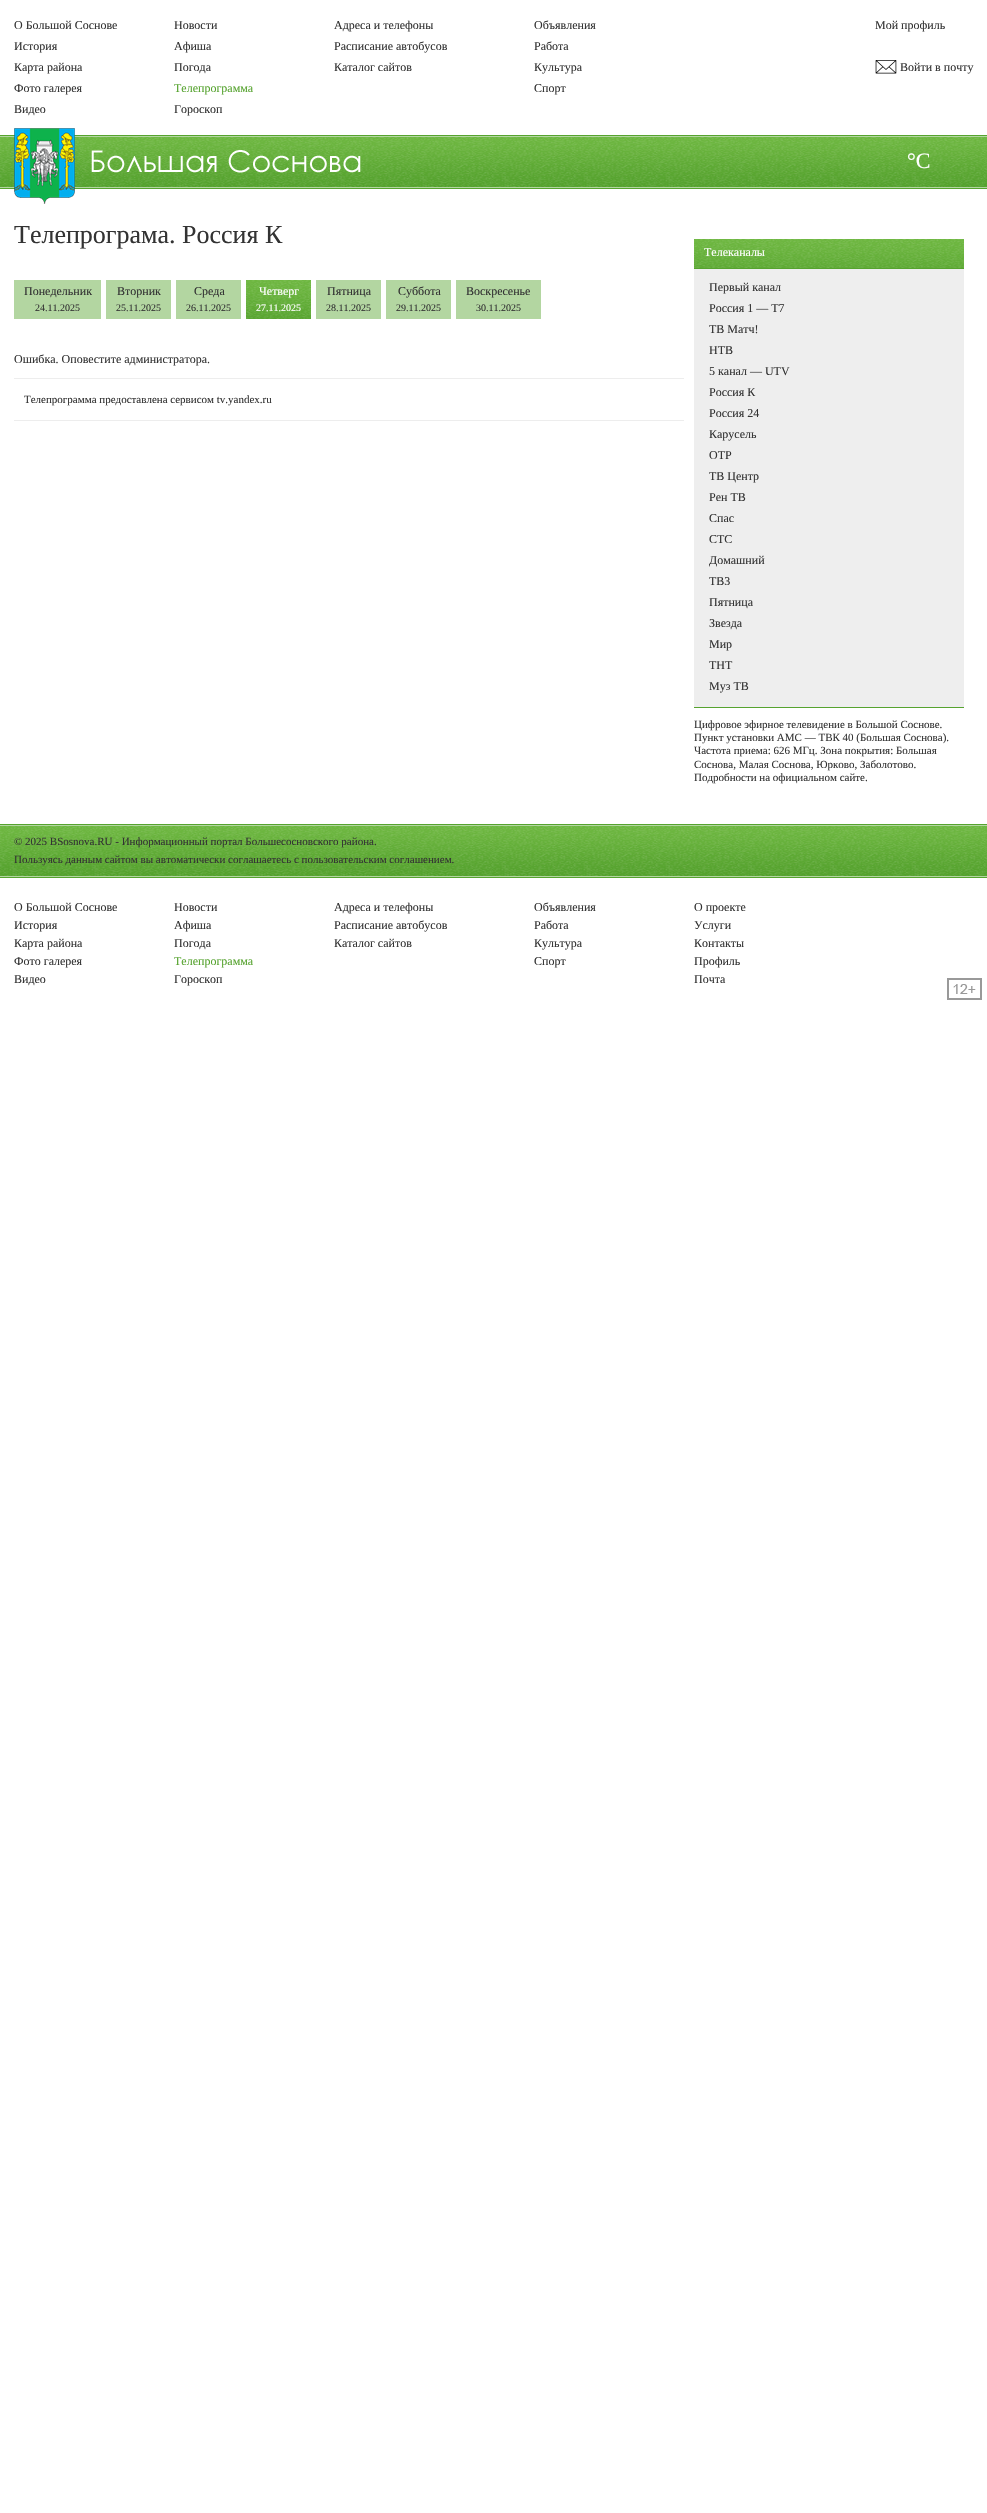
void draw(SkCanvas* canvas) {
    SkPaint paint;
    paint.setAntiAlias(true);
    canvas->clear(0xFFFFFFFF);
    SkFont font1(fontMgr->matchFamilyStyle("Liberation Serif", SkFontStyle::Normal()), 12);
    font1.setSubpixel(true);
    paint.setColor(0xFF333333);
    canvas->drawString("О Большой Соснове", 14, 29, font1, paint);
    canvas->drawString("История", 14, 50, font1, paint);
    canvas->drawString("Карта района", 14, 71, font1, paint);
    canvas->drawString("Фото галерея", 14, 92, font1, paint);
    canvas->drawString("Видео", 14, 113, font1, paint);
    canvas->drawString("Новости", 174, 29, font1, paint);
    canvas->drawString("Афиша", 174, 50, font1, paint);
    canvas->drawString("Погода", 174, 71, font1, paint);
    paint.setColor(0xFF56A32F);
    canvas->drawString("Телепрограмма", 174, 92, font1, paint);
    paint.setColor(0xFF333333);
    canvas->drawString("Гороскоп", 174, 113, font1, paint);
    canvas->drawString("Адреса и телефоны", 334, 29, font1, paint);
    canvas->drawString("Расписание автобусов", 334, 50, font1, paint);
    canvas->drawString("Каталог сайтов", 334, 71, font1, paint);
    canvas->drawString("Объявления", 534, 29, font1, paint);
    canvas->drawString("Работа", 534, 50, font1, paint);
    canvas->drawString("Культура", 534, 71, font1, paint);
    canvas->drawString("Спорт", 534, 92, font1, paint);
    canvas->drawString("Мой профиль", 875, 29, font1, paint);
    canvas->drawImageRect(SkImages::DeferredFromEncodedData(SkData::MakeFromFileName("img1.png")), SkRect::MakeXYWH(875, 60, 22, 14), SkSamplingOptions());
    canvas->drawString("Войти в почту", 900, 71, font1, paint);
    paint.setColor(0xFF56A32F);
    canvas->drawRect(SkRect::MakeXYWH(0, 135, 987, 1), paint);
    canvas->drawRect(SkRect::MakeXYWH(0, 188, 987, 1), paint);
    canvas->drawImageRect(SkImages::DeferredFromEncodedData(SkData::MakeFromFileName("img2.png")), SkRect::MakeXYWH(0, 137, 987, 50), SkSamplingOptions());
    paint.setColor(0xFFB3D6A1);
    canvas->drawRect(SkRect::MakeXYWH(0, 136, 987, 1), paint);
    canvas->drawRect(SkRect::MakeXYWH(0, 187, 987, 1), paint);
    canvas->drawImageRect(SkImages::DeferredFromEncodedData(SkData::MakeFromFileName("img3.png")), SkRect::MakeXYWH(14, 128, 347, 76), SkSamplingOptions());
    SkFont font2(fontMgr->matchFamilyStyle("Liberation Serif", SkFontStyle::Normal()), 22);
    font2.setSubpixel(true);
    paint.setColor(0xFFFFFFFF);
    canvas->drawString("°C", 907, 168, font2, paint);
    SkFont font3(fontMgr->matchFamilyStyle("Liberation Serif", SkFontStyle::Normal()), 26);
    font3.setSubpixel(true);
    paint.setColor(0xFF333333);
    canvas->drawString("Телепрограма. Россия К", 14, 243, font3, paint);
    paint.setColor(0xFFB3D6A1);
    canvas->drawRect(SkRect::MakeXYWH(14, 280, 87, 39), paint);
    paint.setColor(0xFF333333);
    canvas->drawString("Понедельник", 24, 295, font1, paint);
    SkFont font4(fontMgr->matchFamilyStyle("Liberation Serif", SkFontStyle::Normal()), 10);
    font4.setSubpixel(true);
    canvas->drawString("24.11.2025", 35, 311, font4, paint);
    paint.setColor(0xFFB3D6A1);
    canvas->drawRect(SkRect::MakeXYWH(106, 280, 65, 39), paint);
    paint.setColor(0xFF333333);
    canvas->drawString("Вторник", 117, 295, font1, paint);
    canvas->drawString("25.11.2025", 116, 311, font4, paint);
    paint.setColor(0xFFB3D6A1);
    canvas->drawRect(SkRect::MakeXYWH(176, 280, 65, 39), paint);
    paint.setColor(0xFF333333);
    canvas->drawString("Среда", 194, 295, font1, paint);
    canvas->drawString("26.11.2025", 186, 311, font4, paint);
    canvas->drawImageRect(SkImages::DeferredFromEncodedData(SkData::MakeFromFileName("img4.png")), SkRect::MakeXYWH(246, 280, 65, 39), SkSamplingOptions());
    paint.setColor(0xFFFFFFFF);
    canvas->drawString("Четверг", 259, 295, font1, paint);
    canvas->drawString("27.11.2025", 256, 311, font4, paint);
    paint.setColor(0xFFB3D6A1);
    canvas->drawRect(SkRect::MakeXYWH(316, 280, 65, 39), paint);
    paint.setColor(0xFF333333);
    canvas->drawString("Пятница", 327, 295, font1, paint);
    canvas->drawString("28.11.2025", 326, 311, font4, paint);
    paint.setColor(0xFFB3D6A1);
    canvas->drawRect(SkRect::MakeXYWH(386, 280, 65, 39), paint);
    paint.setColor(0xFF333333);
    canvas->drawString("Суббота", 398, 295, font1, paint);
    canvas->drawString("29.11.2025", 396, 311, font4, paint);
    paint.setColor(0xFFB3D6A1);
    canvas->drawRect(SkRect::MakeXYWH(456, 280, 85, 39), paint);
    paint.setColor(0xFF333333);
    canvas->drawString("Воскресенье", 466, 295, font1, paint);
    canvas->drawString("30.11.2025", 476, 311, font4, paint);
    canvas->drawString("Ошибка. Оповестите администратора.", 14, 363, font1, paint);
    paint.setColor(0xFFEDEDED);
    canvas->drawRect(SkRect::MakeXYWH(14, 378, 670, 1), paint);
    canvas->drawRect(SkRect::MakeXYWH(14, 420, 670, 1), paint);
    SkFont font5(fontMgr->matchFamilyStyle("Liberation Serif", SkFontStyle::Normal()), 11);
    font5.setSubpixel(true);
    paint.setColor(0xFF333333);
    canvas->drawString("Телепрограмма предоставлена сервисом tv.yandex.ru", 24, 403, font5, paint);
    canvas->drawImageRect(SkImages::DeferredFromEncodedData(SkData::MakeFromFileName("img5.png")), SkRect::MakeXYWH(694, 239, 270, 29), SkSamplingOptions());
    paint.setColor(0xFFFFFFFF);
    canvas->drawString("Телеканалы", 704, 256, font1, paint);
    paint.setColor(0xFFEEEEEE);
    canvas->drawRect(SkRect::MakeXYWH(694, 269, 270, 438), paint);
    paint.setColor(0xFF56A32F);
    canvas->drawRect(SkRect::MakeXYWH(694, 268, 270, 1), paint);
    canvas->drawRect(SkRect::MakeXYWH(694, 707, 270, 1), paint);
    paint.setColor(0xFF333333);
    canvas->drawString("Первый канал", 709, 291, font1, paint);
    canvas->drawString("Россия 1 — Т7", 709, 312, font1, paint);
    canvas->drawString("ТВ Матч!", 709, 333, font1, paint);
    canvas->drawString("НТВ", 709, 354, font1, paint);
    canvas->drawString("5 канал — UTV", 709, 375, font1, paint);
    canvas->drawString("Россия К", 709, 396, font1, paint);
    canvas->drawString("Россия 24", 709, 417, font1, paint);
    canvas->drawString("Карусель", 709, 438, font1, paint);
    canvas->drawString("ОТР", 709, 459, font1, paint);
    canvas->drawString("ТВ Центр", 709, 480, font1, paint);
    canvas->drawString("Рен ТВ", 709, 501, font1, paint);
    canvas->drawString("Спас", 709, 522, font1, paint);
    canvas->drawString("СТС", 709, 543, font1, paint);
    canvas->drawString("Домашний", 709, 564, font1, paint);
    canvas->drawString("ТВ3", 709, 585, font1, paint);
    canvas->drawString("Пятница", 709, 606, font1, paint);
    canvas->drawString("Звезда", 709, 627, font1, paint);
    canvas->drawString("Мир", 709, 648, font1, paint);
    canvas->drawString("ТНТ", 709, 669, font1, paint);
    canvas->drawString("Муз ТВ", 709, 690, font1, paint);
    canvas->drawString("Цифровое эфирное телевидение в Большой Соснове.", 694, 728, font5, paint);
    canvas->drawString("Пункт установки АМС — ТВК 40 (Большая Соснова).", 694, 741, font5, paint);
    canvas->drawString("Частота приема: 626 МГц. Зона покрытия: Большая", 694, 754, font5, paint);
    canvas->drawString("Соснова, Малая Соснова, Юрково, Заболотово.", 694, 768, font5, paint);
    canvas->drawString("Подробности на официальном сайте.", 694, 781, font5, paint);
    paint.setColor(0xFF56A32F);
    canvas->drawRect(SkRect::MakeXYWH(0, 824, 987, 1), paint);
    canvas->drawImageRect(SkImages::DeferredFromEncodedData(SkData::MakeFromFileName("img2.png")), SkRect::MakeXYWH(0, 826, 987, 50), SkSamplingOptions());
    paint.setColor(0xFFB3D6A1);
    canvas->drawRect(SkRect::MakeXYWH(0, 825, 987, 1), paint);
    canvas->drawRect(SkRect::MakeXYWH(0, 876, 987, 1), paint);
    paint.setColor(0xFF333333);
    canvas->drawString("© 2025 BSosnova.RU - Информационный портал Большесосновского района.", 14, 845, font5, paint);
    canvas->drawString("Пользуясь данным сайтом вы автоматически соглашаетесь с пользовательским соглашением.", 14, 863, font5, paint);
    paint.setColor(0xFF56A32F);
    canvas->drawRect(SkRect::MakeXYWH(0, 877, 987, 1), paint);
    paint.setColor(0xFF333333);
    canvas->drawString("О Большой Соснове", 14, 911, font1, paint);
    canvas->drawString("История", 14, 929, font1, paint);
    canvas->drawString("Карта района", 14, 947, font1, paint);
    canvas->drawString("Фото галерея", 14, 965, font1, paint);
    canvas->drawString("Видео", 14, 983, font1, paint);
    canvas->drawString("Новости", 174, 911, font1, paint);
    canvas->drawString("Афиша", 174, 929, font1, paint);
    canvas->drawString("Погода", 174, 947, font1, paint);
    paint.setColor(0xFF56A32F);
    canvas->drawString("Телепрограмма", 174, 965, font1, paint);
    paint.setColor(0xFF333333);
    canvas->drawString("Гороскоп", 174, 983, font1, paint);
    canvas->drawString("Адреса и телефоны", 334, 911, font1, paint);
    canvas->drawString("Расписание автобусов", 334, 929, font1, paint);
    canvas->drawString("Каталог сайтов", 334, 947, font1, paint);
    canvas->drawString("Объявления", 534, 911, font1, paint);
    canvas->drawString("Работа", 534, 929, font1, paint);
    canvas->drawString("Культура", 534, 947, font1, paint);
    canvas->drawString("Спорт", 534, 965, font1, paint);
    canvas->drawString("О проекте", 694, 911, font1, paint);
    canvas->drawString("Услуги", 694, 929, font1, paint);
    canvas->drawString("Контакты", 694, 947, font1, paint);
    canvas->drawString("Профиль", 694, 965, font1, paint);
    canvas->drawString("Почта", 694, 983, font1, paint);
    canvas->drawImageRect(SkImages::DeferredFromEncodedData(SkData::MakeFromFileName("img6.png")), SkRect::MakeXYWH(947, 978, 35, 22), SkSamplingOptions());
}
